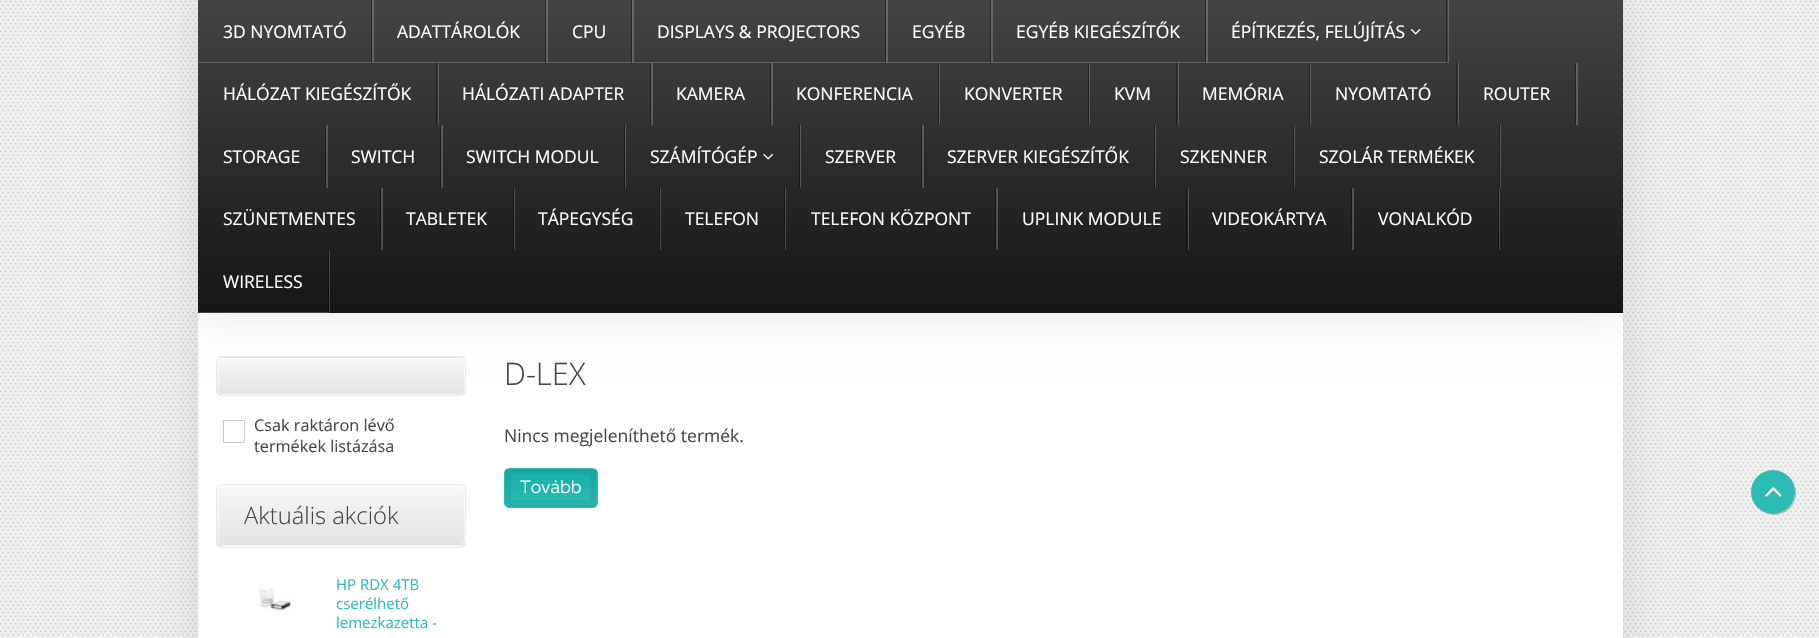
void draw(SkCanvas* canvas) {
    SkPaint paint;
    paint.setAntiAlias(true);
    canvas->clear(0xFFFFFFFF);
    canvas->drawImageRect(SkImages::DeferredFromEncodedData(SkData::MakeFromFileName("img1.png")), SkRect::MakeXYWH(0, 0, 1819, 638), SkSamplingOptions());
    paint.setColor(0x1A000000);
    paint.setMaskFilter(SkMaskFilter::MakeBlur(kNormal_SkBlurStyle, 22));
    canvas->drawRect(SkRect::MakeXYWH(198, 319, 1425, 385), paint);
    paint.setMaskFilter(nullptr);
    paint.setColor(0xFFFFFFFF);
    canvas->drawRect(SkRect::MakeXYWH(198, 313, 1425, 325), paint);
    canvas->save();
    canvas->clipPath(SkPathBuilder().moveTo(222, 356).lineTo(460, 356).cubicTo(463.5f, 356, 466, 358.5f, 466, 362).lineTo(466, 390).cubicTo(466, 393.5f, 463.5f, 396, 460, 396).lineTo(222, 396).cubicTo(218.5f, 396, 216, 393.5f, 216, 390).lineTo(216, 362).cubicTo(216, 358.5f, 218.5f, 356, 222, 356).close().detach(), true);
    {
        const SkColor colors[] = {0xFFF8F8F8, 0xFFE2E2E2};
        const float stops[] = {0, 1};
        const SkPoint ends[] = {{341, 320}, {341, 358}};
        paint.setShader(SkGradientShader::MakeLinear(ends, colors, stops, 2, SkTileMode::kClamp));
        paint.setAlpha(255);
    }
    canvas->drawRect(SkRect::MakeXYWH(216, 356, 250, 2), paint);
    {
        const SkColor colors[] = {0xFFF8F8F8, 0xFFE2E2E2};
        const float stops[] = {0, 1};
        const SkPoint ends[] = {{341, 358}, {341, 395}};
        paint.setShader(SkGradientShader::MakeLinear(ends, colors, stops, 2, SkTileMode::kClamp));
        paint.setAlpha(255);
    }
    canvas->drawRect(SkRect::MakeXYWH(216, 358, 250, 37), paint);
    canvas->restore();
    paint.setStyle(SkPaint::kStroke_Style);
    paint.setStrokeWidth(1);
    paint.setShader(nullptr);
    paint.setColor(0xFFEBEBEB);
    canvas->drawRoundRect(SkRect::MakeXYWH(216.5f, 356.5f, 249, 39), 5.5f, 5.5f, paint);
    paint.setColor(0xB3FFFFFF);
    canvas->drawRoundRect(SkRect::MakeXYWH(218.5f, 358.5f, 246, 36), 5.5f, 5.5f, paint);
    paint.setStyle(SkPaint::kFill_Style);
    paint.setColor(0x1A000000);
    paint.setMaskFilter(SkMaskFilter::MakeBlur(kNormal_SkBlurStyle, 22));
    canvas->drawRect(SkRect::MakeXYWH(198, 0, 1425, 313), paint);
    paint.setMaskFilter(nullptr);
    {
        const SkColor colors[] = {0xFF444444, 0xFF151515};
        const float stops[] = {0, 1};
        const SkPoint ends[] = {{910, 0}, {910, 313}};
        paint.setShader(SkGradientShader::MakeLinear(ends, colors, stops, 2, SkTileMode::kClamp));
        paint.setAlpha(255);
    }
    canvas->drawRect(SkRect::MakeXYWH(198, 0, 1425, 313), paint);
    paint.setShader(nullptr);
    paint.setColor(0x33FFFFFF);
    canvas->drawPath(SkPathBuilder().moveTo(199, 62).lineTo(199, 63).lineTo(374, 63).lineTo(374, 0).lineTo(372, 0).lineTo(372, 62).close().detach(), paint);
    paint.setColor(0x66000000);
    canvas->drawRect(SkRect::MakeXYWH(371, 0, 1, 63), paint);
    SkFont font1(fontMgr->matchFamilyStyle("Open Sans", SkFontStyle::Normal()), 17.5f);
    font1.setSubpixel(true);
    paint.setColor(0xFFFFFFFF);
    canvas->drawString("3D NYOMTATÓ", 223, 38, font1, paint);
    paint.setColor(0x33FFFFFF);
    canvas->drawPath(SkPathBuilder().moveTo(374, 62).lineTo(374, 63).lineTo(548, 63).lineTo(548, 0).lineTo(546, 0).lineTo(546, 62).close().detach(), paint);
    paint.setColor(0x66000000);
    canvas->drawRect(SkRect::MakeXYWH(545, 0, 1, 63), paint);
    paint.setColor(0xFFFFFFFF);
    canvas->drawString("ADATTÁROLÓK", 397, 38, font1, paint);
    paint.setColor(0x33FFFFFF);
    canvas->drawPath(SkPathBuilder().moveTo(548, 62).lineTo(548, 63).lineTo(634, 63).lineTo(634, 0).lineTo(632, 0).lineTo(632, 62).close().detach(), paint);
    paint.setColor(0x66000000);
    canvas->drawRect(SkRect::MakeXYWH(631, 0, 1, 63), paint);
    paint.setColor(0xFFFFFFFF);
    canvas->drawString("CPU", 572, 38, font1, paint);
    paint.setColor(0x33FFFFFF);
    canvas->drawPath(SkPathBuilder().moveTo(634, 62).lineTo(634, 63).lineTo(888, 63).lineTo(888, 0).lineTo(886, 0).lineTo(886, 62).close().detach(), paint);
    paint.setColor(0x66000000);
    canvas->drawRect(SkRect::MakeXYWH(885, 0, 1, 63), paint);
    paint.setColor(0xFFFFFFFF);
    canvas->drawString("DISPLAYS & PROJECTORS", 657, 38, font1, paint);
    paint.setColor(0x33FFFFFF);
    canvas->drawPath(SkPathBuilder().moveTo(888, 62).lineTo(888, 63).lineTo(993, 63).lineTo(993, 0).lineTo(991, 0).lineTo(991, 62).close().detach(), paint);
    paint.setColor(0x66000000);
    canvas->drawRect(SkRect::MakeXYWH(990, 0, 1, 63), paint);
    paint.setColor(0xFFFFFFFF);
    canvas->drawString("EGYÉB", 912, 38, font1, paint);
    paint.setColor(0x33FFFFFF);
    canvas->drawPath(SkPathBuilder().moveTo(993, 62).lineTo(993, 63).lineTo(1208, 63).lineTo(1208, 0).lineTo(1206, 0).lineTo(1206, 62).close().detach(), paint);
    paint.setColor(0x66000000);
    canvas->drawRect(SkRect::MakeXYWH(1205, 0, 1, 63), paint);
    paint.setColor(0xFFFFFFFF);
    canvas->drawString("EGYÉB KIEGÉSZÍTŐK", 1016, 38, font1, paint);
    paint.setColor(0x33FFFFFF);
    canvas->drawPath(SkPathBuilder().moveTo(1208, 62).lineTo(1208, 63).lineTo(1449, 63).lineTo(1449, 0).lineTo(1448, 0).lineTo(1448, 62).close().detach(), paint);
    paint.setColor(0x66000000);
    canvas->drawRect(SkRect::MakeXYWH(1446, 0, 1, 63), paint);
    paint.setColor(0xFFFFFFFF);
    canvas->drawString("ÉPÍTKEZÉS, FELÚJÍTÁS", 1231, 38, font1, paint);
    canvas->drawImageRect(SkImages::DeferredFromEncodedData(SkData::MakeFromFileName("img2.png")), SkRect::MakeXYWH(1410, 28, 11, 7), SkSamplingOptions());
    paint.setColor(0x33FFFFFF);
    canvas->drawRect(SkRect::MakeXYWH(438, 63, 1, 62), paint);
    paint.setColor(0x66000000);
    canvas->drawRect(SkRect::MakeXYWH(436, 63, 1, 62), paint);
    paint.setColor(0xFFFFFFFF);
    canvas->drawString("HÁLÓZAT KIEGÉSZÍTŐK", 223, 100, font1, paint);
    paint.setColor(0x33FFFFFF);
    canvas->drawRect(SkRect::MakeXYWH(651, 63, 2, 62), paint);
    paint.setColor(0x66000000);
    canvas->drawRect(SkRect::MakeXYWH(650, 63, 1, 62), paint);
    paint.setColor(0xFFFFFFFF);
    canvas->drawString("HÁLÓZATI ADAPTER", 462, 100, font1, paint);
    paint.setColor(0x33FFFFFF);
    canvas->drawRect(SkRect::MakeXYWH(771, 63, 2, 62), paint);
    paint.setColor(0x66000000);
    canvas->drawRect(SkRect::MakeXYWH(770, 63, 1, 62), paint);
    paint.setColor(0xFFFFFFFF);
    canvas->drawString("KAMERA", 676, 100, font1, paint);
    paint.setColor(0x33FFFFFF);
    canvas->drawRect(SkRect::MakeXYWH(939, 63, 1, 62), paint);
    paint.setColor(0x66000000);
    canvas->drawRect(SkRect::MakeXYWH(938, 63, 1, 62), paint);
    paint.setColor(0xFFFFFFFF);
    canvas->drawString("KONFERENCIA", 796, 100, font1, paint);
    paint.setColor(0x33FFFFFF);
    canvas->drawRect(SkRect::MakeXYWH(1089, 63, 1, 62), paint);
    paint.setColor(0x66000000);
    canvas->drawRect(SkRect::MakeXYWH(1088, 63, 1, 62), paint);
    paint.setColor(0xFFFFFFFF);
    canvas->drawString("KONVERTER", 964, 100, font1, paint);
    paint.setColor(0x33FFFFFF);
    canvas->drawRect(SkRect::MakeXYWH(1178, 63, 1, 62), paint);
    paint.setColor(0x66000000);
    canvas->drawRect(SkRect::MakeXYWH(1176, 63, 1, 62), paint);
    paint.setColor(0xFFFFFFFF);
    canvas->drawString("KVM", 1114, 100, font1, paint);
    paint.setColor(0x33FFFFFF);
    canvas->drawRect(SkRect::MakeXYWH(1310, 63, 1, 62), paint);
    paint.setColor(0x66000000);
    canvas->drawRect(SkRect::MakeXYWH(1309, 63, 1, 62), paint);
    paint.setColor(0xFFFFFFFF);
    canvas->drawString("MEMÓRIA", 1202, 100, font1, paint);
    paint.setColor(0x33FFFFFF);
    canvas->drawRect(SkRect::MakeXYWH(1458, 63, 1, 62), paint);
    paint.setColor(0x66000000);
    canvas->drawRect(SkRect::MakeXYWH(1456, 63, 1, 62), paint);
    paint.setColor(0xFFFFFFFF);
    canvas->drawString("NYOMTATÓ", 1335, 100, font1, paint);
    paint.setColor(0x33FFFFFF);
    canvas->drawRect(SkRect::MakeXYWH(1576, 63, 2, 62), paint);
    paint.setColor(0x66000000);
    canvas->drawRect(SkRect::MakeXYWH(1575, 63, 1, 62), paint);
    paint.setColor(0xFFFFFFFF);
    canvas->drawString("ROUTER", 1483, 100, font1, paint);
    paint.setColor(0x33FFFFFF);
    canvas->drawPath(SkPathBuilder().moveTo(199, 188).lineTo(328, 188).lineTo(328, 125).lineTo(326, 125).lineTo(326, 188).close().detach(), paint);
    paint.setColor(0x66000000);
    canvas->drawRect(SkRect::MakeXYWH(325, 125, 1, 63), paint);
    paint.setColor(0xFFFFFFFF);
    canvas->drawString("STORAGE", 223, 163, font1, paint);
    paint.setColor(0x33FFFFFF);
    canvas->drawPath(SkPathBuilder().moveTo(328, 188).lineTo(443, 188).lineTo(443, 125).lineTo(441, 125).lineTo(441, 188).close().detach(), paint);
    paint.setColor(0x66000000);
    canvas->drawRect(SkRect::MakeXYWH(440, 125, 1, 63), paint);
    paint.setColor(0xFFFFFFFF);
    canvas->drawString("SWITCH", 351, 163, font1, paint);
    paint.setColor(0x33FFFFFF);
    canvas->drawPath(SkPathBuilder().moveTo(443, 188).lineTo(626, 188).lineTo(626, 125).lineTo(625, 125).lineTo(625, 188).close().detach(), paint);
    paint.setColor(0x66000000);
    canvas->drawRect(SkRect::MakeXYWH(624, 125, 1, 63), paint);
    paint.setColor(0xFFFFFFFF);
    canvas->drawString("SWITCH MODUL", 466, 163, font1, paint);
    paint.setColor(0x33FFFFFF);
    canvas->drawPath(SkPathBuilder().moveTo(626, 188).lineTo(801, 188).lineTo(801, 125).lineTo(800, 125).lineTo(800, 188).close().detach(), paint);
    paint.setColor(0x66000000);
    canvas->drawRect(SkRect::MakeXYWH(799, 125, 1, 63), paint);
    paint.setColor(0xFFFFFFFF);
    canvas->drawString("SZÁMÍTÓGÉP", 650, 163, font1, paint);
    canvas->drawImageRect(SkImages::DeferredFromEncodedData(SkData::MakeFromFileName("img3.png")), SkRect::MakeXYWH(763, 153, 10, 7), SkSamplingOptions());
    paint.setColor(0x33FFFFFF);
    canvas->drawPath(SkPathBuilder().moveTo(801, 188).lineTo(924, 188).lineTo(924, 125).lineTo(922, 125).lineTo(922, 188).close().detach(), paint);
    paint.setColor(0x66000000);
    canvas->drawRect(SkRect::MakeXYWH(921, 125, 1, 63), paint);
    paint.setColor(0xFFFFFFFF);
    canvas->drawString("SZERVER", 825, 163, font1, paint);
    paint.setColor(0x33FFFFFF);
    canvas->drawPath(SkPathBuilder().moveTo(924, 188).lineTo(1156, 188).lineTo(1156, 125).lineTo(1155, 125).lineTo(1155, 188).close().detach(), paint);
    paint.setColor(0x66000000);
    canvas->drawRect(SkRect::MakeXYWH(1154, 125, 1, 63), paint);
    paint.setColor(0xFFFFFFFF);
    canvas->drawString("SZERVER KIEGÉSZÍTŐK", 947, 163, font1, paint);
    paint.setColor(0x33FFFFFF);
    canvas->drawPath(SkPathBuilder().moveTo(1156, 188).lineTo(1295, 188).lineTo(1295, 125).lineTo(1294, 125).lineTo(1294, 188).close().detach(), paint);
    paint.setColor(0x66000000);
    canvas->drawRect(SkRect::MakeXYWH(1293, 125, 1, 63), paint);
    paint.setColor(0xFFFFFFFF);
    canvas->drawString("SZKENNER", 1180, 163, font1, paint);
    paint.setColor(0x33FFFFFF);
    canvas->drawPath(SkPathBuilder().moveTo(1295, 188).lineTo(1501, 188).lineTo(1501, 125).lineTo(1500, 125).lineTo(1500, 188).close().detach(), paint);
    paint.setColor(0x66000000);
    canvas->drawRect(SkRect::MakeXYWH(1499, 125, 1, 63), paint);
    paint.setColor(0xFFFFFFFF);
    canvas->drawString("SZOLÁR TERMÉKEK", 1319, 163, font1, paint);
    paint.setColor(0x33FFFFFF);
    canvas->drawRect(SkRect::MakeXYWH(381, 188, 2, 62), paint);
    paint.setColor(0x66000000);
    canvas->drawRect(SkRect::MakeXYWH(380, 188, 1, 62), paint);
    paint.setColor(0xFFFFFFFF);
    canvas->drawString("SZÜNETMENTES", 223, 225, font1, paint);
    paint.setColor(0x33FFFFFF);
    canvas->drawRect(SkRect::MakeXYWH(514, 188, 1, 62), paint);
    paint.setColor(0x66000000);
    canvas->drawRect(SkRect::MakeXYWH(513, 188, 1, 62), paint);
    paint.setColor(0xFFFFFFFF);
    canvas->drawString("TABLETEK", 406, 225, font1, paint);
    paint.setColor(0x33FFFFFF);
    canvas->drawRect(SkRect::MakeXYWH(660, 188, 1, 62), paint);
    paint.setColor(0x66000000);
    canvas->drawRect(SkRect::MakeXYWH(659, 188, 1, 62), paint);
    paint.setColor(0xFFFFFFFF);
    canvas->drawString("TÁPEGYSÉG", 538, 225, font1, paint);
    paint.setColor(0x33FFFFFF);
    canvas->drawRect(SkRect::MakeXYWH(785, 188, 1, 62), paint);
    paint.setColor(0x66000000);
    canvas->drawRect(SkRect::MakeXYWH(784, 188, 1, 62), paint);
    paint.setColor(0xFFFFFFFF);
    canvas->drawString("TELEFON", 685, 225, font1, paint);
    paint.setColor(0x33FFFFFF);
    canvas->drawRect(SkRect::MakeXYWH(996, 188, 2, 62), paint);
    paint.setColor(0x66000000);
    canvas->drawRect(SkRect::MakeXYWH(995, 188, 1, 62), paint);
    paint.setColor(0xFFFFFFFF);
    canvas->drawString("TELEFON KÖZPONT", 811, 225, font1, paint);
    paint.setColor(0x33FFFFFF);
    canvas->drawRect(SkRect::MakeXYWH(1188, 188, 1, 62), paint);
    paint.setColor(0x66000000);
    canvas->drawRect(SkRect::MakeXYWH(1186, 188, 1, 62), paint);
    paint.setColor(0xFFFFFFFF);
    canvas->drawString("UPLINK MODULE", 1022, 225, font1, paint);
    paint.setColor(0x33FFFFFF);
    canvas->drawRect(SkRect::MakeXYWH(1352, 188, 2, 62), paint);
    paint.setColor(0x66000000);
    canvas->drawRect(SkRect::MakeXYWH(1351, 188, 1, 62), paint);
    paint.setColor(0xFFFFFFFF);
    canvas->drawString("VIDEOKÁRTYA", 1212, 225, font1, paint);
    paint.setColor(0x33FFFFFF);
    canvas->drawRect(SkRect::MakeXYWH(1499, 188, 1, 62), paint);
    paint.setColor(0x66000000);
    canvas->drawRect(SkRect::MakeXYWH(1498, 188, 1, 62), paint);
    paint.setColor(0xFFFFFFFF);
    canvas->drawString("VONALKÓD", 1378, 225, font1, paint);
    paint.setColor(0x33FFFFFF);
    canvas->drawPath(SkPathBuilder().moveTo(199, 312).lineTo(199, 313).lineTo(330, 313).lineTo(330, 250).lineTo(329, 250).lineTo(329, 312).close().detach(), paint);
    paint.setColor(0x66000000);
    canvas->drawRect(SkRect::MakeXYWH(328, 250, 1, 63), paint);
    paint.setColor(0xFFFFFFFF);
    canvas->drawString("WIRELESS", 223, 288, font1, paint);
    paint.setStyle(SkPaint::kStroke_Style);
    paint.setColor(0xFFC7C7C7);
    canvas->drawRect(SkRect::MakeXYWH(223.5f, 420.5f, 21, 22), paint);
    SkFont font2(fontMgr->matchFamilyStyle("Open Sans", SkFontStyle::Normal()), 16.25f);
    font2.setSubpixel(true);
    paint.setStyle(SkPaint::kFill_Style);
    paint.setColor(0xFF464646);
    canvas->drawString("Csak raktáron lévő", 254, 431, font2, paint);
    canvas->drawString("termékek listázása", 254, 452, font2, paint);
    canvas->save();
    canvas->clipPath(SkPathBuilder().moveTo(222, 484).lineTo(460, 484).cubicTo(463.5f, 484, 466, 486.5f, 466, 490).lineTo(466, 542).cubicTo(466, 545.5f, 463.5f, 548, 460, 548).lineTo(222, 548).cubicTo(218.5f, 548, 216, 545.5f, 216, 542).lineTo(216, 490).cubicTo(216, 486.5f, 218.5f, 484, 222, 484).close().detach(), true);
    {
        const SkColor colors[] = {0xFFF8F8F8, 0xFFE2E2E2};
        const float stops[] = {0, 1};
        const SkPoint ends[] = {{341, 485}, {341, 546}};
        paint.setShader(SkGradientShader::MakeLinear(ends, colors, stops, 2, SkTileMode::kClamp));
        paint.setAlpha(255);
    }
    canvas->drawRect(SkRect::MakeXYWH(216, 485, 250, 61), paint);
    {
        const SkColor colors[] = {0xFFF8F8F8, 0xFFE2E2E2};
        const float stops[] = {0, 1};
        const SkPoint ends[] = {{341, 546}, {341, 608}};
        paint.setShader(SkGradientShader::MakeLinear(ends, colors, stops, 2, SkTileMode::kClamp));
        paint.setAlpha(255);
    }
    canvas->drawRect(SkRect::MakeXYWH(216, 546, 250, 2), paint);
    canvas->restore();
    paint.setStyle(SkPaint::kStroke_Style);
    paint.setShader(nullptr);
    paint.setColor(0xFFEBEBEB);
    canvas->drawRoundRect(SkRect::MakeXYWH(216.5f, 484.5f, 249, 63), 5.5f, 5.5f, paint);
    paint.setColor(0xB3FFFFFF);
    canvas->drawRoundRect(SkRect::MakeXYWH(218.5f, 485.5f, 246, 60), 5.5f, 5.5f, paint);
    SkFont font3(fontMgr->matchFamilyStyle("Open Sans", SkFontStyle(300, SkFontStyle::kNormal_Width, SkFontStyle::kUpright_Slant)), 23.75f);
    font3.setSubpixel(true);
    paint.setStyle(SkPaint::kFill_Style);
    paint.setColor(0xFF464646);
    canvas->drawString("Aktuális akciók", 244, 524, font3, paint);
    canvas->drawImageRect(SkImages::DeferredFromEncodedData(SkData::MakeFromFileName("img4.png")), SkRect::MakeXYWH(259, 588, 33, 24), SkSamplingOptions());
    SkFont font4(fontMgr->matchFamilyStyle("Open Sans", SkFontStyle::Normal()), 15);
    font4.setSubpixel(true);
    paint.setColor(0xFF2CBBB5);
    canvas->drawString("HP RDX 4TB", 336, 590, font4, paint);
    canvas->drawString("cserélhető", 336, 609, font4, paint);
    canvas->drawString("lemezkazetta -", 336, 628, font4, paint);
    SkFont font5(fontMgr->matchFamilyStyle("Open Sans", SkFontStyle(300, SkFontStyle::kNormal_Width, SkFontStyle::kUpright_Slant)), 31);
    font5.setSubpixel(true);
    paint.setColor(0xFF464646);
    canvas->drawString("D-LEX", 504, 385, font5, paint);
    canvas->drawString("Nincs megjeleníthető termék.", 504, 442, font1, paint);
    canvas->save();
    canvas->clipPath(SkPathBuilder().moveTo(510, 468).lineTo(592, 468).cubicTo(595.5f, 468, 598, 470.5f, 598, 474).lineTo(598, 502).cubicTo(598, 505.5f, 595.5f, 508, 592, 508).lineTo(510, 508).cubicTo(506.5f, 508, 504, 505.5f, 504, 502).lineTo(504, 474).cubicTo(504, 470.5f, 506.5f, 468, 510, 468).close().detach(), true);
    {
        const SkColor colors[] = {0xFF18AFA8, 0xFF2CBBB5};
        const float stops[] = {0, 1};
        const SkPoint ends[] = {{551, 469}, {551, 506}};
        paint.setShader(SkGradientShader::MakeLinear(ends, colors, stops, 2, SkTileMode::kClamp));
        paint.setAlpha(255);
    }
    canvas->drawRect(SkRect::MakeXYWH(504, 469, 94, 37), paint);
    {
        const SkColor colors[] = {0xFF18AFA8, 0xFF2CBBB5};
        const float stops[] = {0, 1};
        const SkPoint ends[] = {{551, 506}, {551, 544}};
        paint.setShader(SkGradientShader::MakeLinear(ends, colors, stops, 2, SkTileMode::kClamp));
        paint.setAlpha(255);
    }
    canvas->drawRect(SkRect::MakeXYWH(504, 506, 94, 2), paint);
    canvas->restore();
    paint.setStyle(SkPaint::kStroke_Style);
    paint.setStrokeWidth(6);
    paint.setShader(nullptr);
    paint.setColor(0x0D000000);
    canvas->drawRect(SkRect::MakeXYWH(508, 472, 85, 31), paint);
    paint.setStrokeWidth(1);
    paint.setColor(0xFF2CBBB5);
    canvas->drawRoundRect(SkRect::MakeXYWH(504.5f, 468.5f, 93, 39), 5.5f, 5.5f, paint);
    SkFont font6(fontMgr->matchFamilyStyle("Raleway", SkFontStyle::Normal()), 17.5f);
    font6.setSubpixel(true);
    paint.setStyle(SkPaint::kFill_Style);
    paint.setColor(0xFFFFFFFF);
    canvas->drawString("Tovább", 520, 493, font6, paint);
    paint.setColor(0x33000000);
    canvas->drawPath(SkPathBuilder().moveTo(1760, 509.5f).cubicTo(1769.5f, 518, 1785, 516.5f, 1792.5f, 505.5f).cubicTo(1799, 496, 1796.5f, 482, 1787.5f, 475.5f).cubicTo(1795.5f, 482.5f, 1797.5f, 495, 1791.5f, 504).cubicTo(1784.5f, 514.5f, 1770, 516.5f, 1760, 509.5f).close().detach(), paint);
    paint.setColor(0xFF2CBBB5);
    canvas->drawCircle(1773, 492, 22, paint);
    canvas->drawImageRect(SkImages::DeferredFromEncodedData(SkData::MakeFromFileName("img5.png")), SkRect::MakeXYWH(1765, 487, 17, 10), SkSamplingOptions());
}
